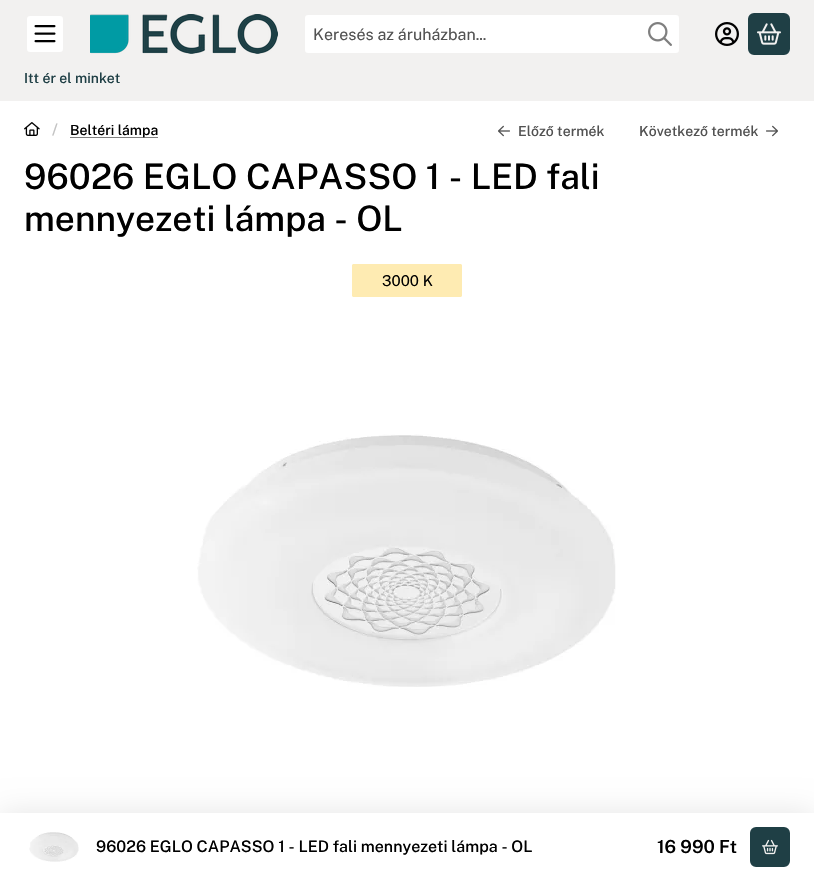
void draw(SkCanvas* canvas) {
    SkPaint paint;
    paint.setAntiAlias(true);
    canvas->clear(0xFFFFFFFF);
    paint.setColor(0xFFF2F1F0);
    canvas->drawRect(SkRect::MakeXYWH(0, 0, 814, 101), paint);
    paint.setColor(0xFFFFFFFF);
    canvas->drawRoundRect(SkRect::MakeXYWH(25.5f, 14.5f, 39, 39), 4.5f, 4.5f, paint);
    paint.setStyle(SkPaint::kStroke_Style);
    paint.setStrokeWidth(3);
    paint.setColor(0xFFF2F1F0);
    canvas->drawRoundRect(SkRect::MakeXYWH(25.5f, 14.5f, 39, 39), 4.5f, 4.5f, paint);
    canvas->drawImageRect(SkImages::DeferredFromEncodedData(SkData::MakeFromFileName("img1.png")), SkRect::MakeXYWH(34, 25, 22, 18), SkSamplingOptions());
    canvas->drawImageRect(SkImages::DeferredFromEncodedData(SkData::MakeFromFileName("img2.png")), SkRect::MakeXYWH(90, 14, 188, 40), SkSamplingOptions());
    paint.setStyle(SkPaint::kFill_Style);
    paint.setColor(0xFFFFFFFF);
    canvas->drawRoundRect(SkRect::MakeXYWH(303.5f, 13.5f, 377, 41), 4.5f, 4.5f, paint);
    paint.setStyle(SkPaint::kStroke_Style);
    paint.setColor(0xFFF2F1F0);
    canvas->drawRoundRect(SkRect::MakeXYWH(303.5f, 13.5f, 377, 41), 4.5f, 4.5f, paint);
    SkFont font1(fontMgr->matchFamilyStyle("Public Sans", SkFontStyle::Normal()), 16);
    font1.setSubpixel(true);
    paint.setStyle(SkPaint::kFill_Style);
    paint.setColor(0xFF525252);
    canvas->drawString("Keresés az áruházban...", 313, 40, font1, paint);
    canvas->drawImageRect(SkImages::DeferredFromEncodedData(SkData::MakeFromFileName("img3.png")), SkRect::MakeXYWH(648, 22, 24, 24), SkSamplingOptions());
    canvas->drawImageRect(SkImages::DeferredFromEncodedData(SkData::MakeFromFileName("img4.png")), SkRect::MakeXYWH(715, 22, 24, 24), SkSamplingOptions());
    paint.setColor(0xFF1F3F45);
    canvas->drawRoundRect(SkRect::MakeXYWH(749.5f, 14.5f, 39, 39), 4.5f, 4.5f, paint);
    paint.setStyle(SkPaint::kStroke_Style);
    canvas->drawRoundRect(SkRect::MakeXYWH(749.5f, 14.5f, 39, 39), 4.5f, 4.5f, paint);
    canvas->drawImageRect(SkImages::DeferredFromEncodedData(SkData::MakeFromFileName("img5.png")), SkRect::MakeXYWH(757, 23, 24, 22), SkSamplingOptions());
    SkFont font2(fontMgr->matchFamilyStyle("Public Sans", SkFontStyle(500, SkFontStyle::kNormal_Width, SkFontStyle::kUpright_Slant)), 14);
    font2.setSubpixel(true);
    paint.setStyle(SkPaint::kFill_Style);
    canvas->drawString("Itt ér el minket", 24, 83, font2, paint);
    canvas->drawImageRect(SkImages::DeferredFromEncodedData(SkData::MakeFromFileName("img6.png")), SkRect::MakeXYWH(24, 122, 16, 14), SkSamplingOptions());
    SkFont font3(fontMgr->matchFamilyStyle("Public Sans", SkFontStyle(500, SkFontStyle::kNormal_Width, SkFontStyle::kUpright_Slant)), 16);
    font3.setSubpixel(true);
    paint.setColor(0xFFC2C2C2);
    canvas->drawString("/", 52, 135, font3, paint);
    paint.setColor(0xFF808080);
    canvas->drawRect(SkRect::MakeXYWH(70, 137, 88, 1), paint);
    paint.setColor(0xFF000000);
    canvas->drawString("Beltéri lámpa", 70, 135, font2, paint);
    canvas->drawImageRect(SkImages::DeferredFromEncodedData(SkData::MakeFromFileName("img7.png")), SkRect::MakeXYWH(498, 125, 12, 12), SkSamplingOptions());
    paint.setColor(0xFF525252);
    canvas->drawString("Előző termék", 518, 136, font2, paint);
    canvas->drawString("Következő termék", 639, 136, font2, paint);
    canvas->drawImageRect(SkImages::DeferredFromEncodedData(SkData::MakeFromFileName("img8.png")), SkRect::MakeXYWH(766, 125, 12, 12), SkSamplingOptions());
    SkFont font4(fontMgr->matchFamilyStyle("Public Sans", SkFontStyle(500, SkFontStyle::kNormal_Width, SkFontStyle::kUpright_Slant)), 35.3f);
    font4.setSubpixel(true);
    paint.setColor(0xFF000000);
    canvas->drawString("96026 EGLO CAPASSO 1 - LED fali", 24, 189, font4, paint);
    canvas->drawString("mennyezeti lámpa - OL", 24, 231, font4, paint);
    paint.setColor(0xFFFEEBB2);
    canvas->drawPath(SkPathBuilder().moveTo(352, 265).lineTo(353, 264).lineTo(461, 264).lineTo(462, 265).lineTo(462, 296).lineTo(461, 297).lineTo(353, 297).lineTo(352, 296).close().detach(), paint);
    SkFont font5(fontMgr->matchFamilyStyle("Public Sans", SkFontStyle::Normal()), 15);
    font5.setSubpixel(true);
    paint.setColor(0xFF000000);
    canvas->drawString("3000 K", 382, 286, font5, paint);
    canvas->drawImageRect(SkImages::DeferredFromEncodedData(SkData::MakeFromFileName("img9.png")), SkRect::MakeXYWH(197, 434, 419, 253), SkSamplingOptions());
    paint.setColor(0x1A000000);
    paint.setMaskFilter(SkMaskFilter::MakeBlur(kNormal_SkBlurStyle, 15));
    canvas->drawRect(SkRect::MakeXYWH(0, 813, 814, 68), paint);
    paint.setMaskFilter(nullptr);
    paint.setColor(0xFFFFFFFF);
    canvas->drawRect(SkRect::MakeXYWH(0, 813, 814, 68), paint);
    canvas->drawImageRect(SkImages::DeferredFromEncodedData(SkData::MakeFromFileName("img10.png")), SkRect::MakeXYWH(29, 832, 50, 30), SkSamplingOptions());
    paint.setColor(0xFF000000);
    canvas->drawString("96026 EGLO CAPASSO 1 - LED fali mennyezeti lámpa - OL", 96, 852, font3, paint);
    SkFont font6(fontMgr->matchFamilyStyle("Public Sans", SkFontStyle(600, SkFontStyle::kNormal_Width, SkFontStyle::kUpright_Slant)), 18);
    font6.setSubpixel(true);
    canvas->drawString("16 990 Ft", 657, 853, font6, paint);
    paint.setColor(0xFF1F3F45);
    canvas->drawRoundRect(SkRect::MakeXYWH(751.5f, 828.5f, 37, 37), 4.5f, 4.5f, paint);
    paint.setStyle(SkPaint::kStroke_Style);
    canvas->drawRoundRect(SkRect::MakeXYWH(751.5f, 828.5f, 37, 37), 4.5f, 4.5f, paint);
    canvas->drawImageRect(SkImages::DeferredFromEncodedData(SkData::MakeFromFileName("img11.png")), SkRect::MakeXYWH(762, 839, 16, 16), SkSamplingOptions());
}
